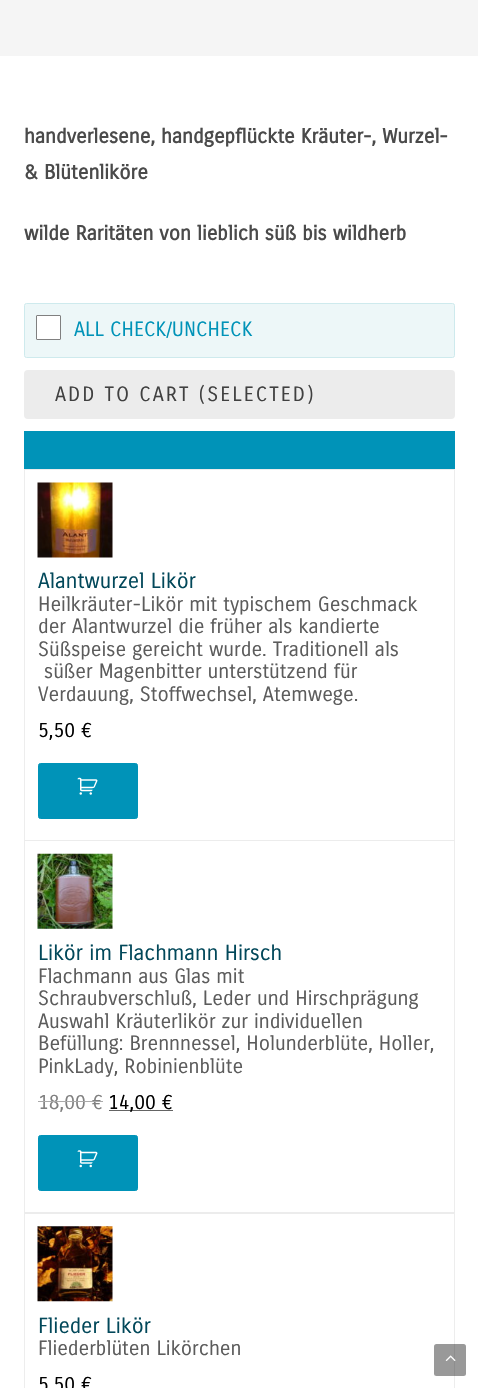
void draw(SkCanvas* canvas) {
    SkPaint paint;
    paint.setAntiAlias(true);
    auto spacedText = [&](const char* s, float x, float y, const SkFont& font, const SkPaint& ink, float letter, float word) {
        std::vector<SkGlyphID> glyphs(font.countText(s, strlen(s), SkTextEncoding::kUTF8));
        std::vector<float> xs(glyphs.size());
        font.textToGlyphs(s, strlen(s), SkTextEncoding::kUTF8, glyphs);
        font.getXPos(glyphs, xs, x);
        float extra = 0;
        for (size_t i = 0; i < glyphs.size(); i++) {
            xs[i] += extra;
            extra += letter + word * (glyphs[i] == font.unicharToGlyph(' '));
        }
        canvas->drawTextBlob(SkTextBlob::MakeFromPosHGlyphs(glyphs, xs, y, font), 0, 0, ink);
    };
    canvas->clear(0xFFFFFFFF);
    paint.setColor(0xFFF5F5F5);
    canvas->drawRect(SkRect::MakeXYWH(0, 0, 478, 56), paint);
    SkFont font1(fontMgr->matchFamilyStyle("Carrois Gothic", SkFontStyle::Bold()), 20);
    font1.setSubpixel(true);
    paint.setColor(0xFF4A4A4A);
    canvas->drawString("handverlesene, handgepflückte Kräuter-, Wurzel-", 24, 143, font1, paint);
    canvas->drawString("& Blütenliköre", 24, 179, font1, paint);
    canvas->drawString("wilde Raritäten von lieblich süß bis wildherb", 24, 240, font1, paint);
    paint.setColor(0xFFEDF7F8);
    canvas->drawRoundRect(SkRect::MakeXYWH(24.5f, 303.5f, 430, 54), 2, 2, paint);
    paint.setStyle(SkPaint::kStroke_Style);
    paint.setStrokeWidth(1);
    paint.setColor(0xFFCEEAED);
    canvas->drawRoundRect(SkRect::MakeXYWH(24.5f, 303.5f, 430, 54), 2, 2, paint);
    paint.setStyle(SkPaint::kFill_Style);
    paint.setColor(0xFFFFFFFF);
    canvas->drawRoundRect(SkRect::MakeXYWH(36.5f, 315.5f, 24, 24), 0.5f, 0.5f, paint);
    paint.setStyle(SkPaint::kStroke_Style);
    paint.setColor(0xFF808080);
    canvas->drawRoundRect(SkRect::MakeXYWH(36.5f, 315.5f, 24, 24), 0.5f, 0.5f, paint);
    SkFont font2(fontMgr->matchFamilyStyle("Carrois Gothic", SkFontStyle::Normal()), 20);
    font2.setSubpixel(true);
    paint.setStyle(SkPaint::kFill_Style);
    paint.setColor(0xFF0093B8);
    canvas->drawString("ALL CHECK/UNCHECK", 74, 336, font2, paint);
    paint.setColor(0xFFECECEC);
    canvas->drawRoundRect(SkRect::MakeXYWH(24, 370, 431, 49), 4, 4, paint);
    paint.setColor(0xFF404040);
    spacedText("ADD TO CART (SELECTED)", 55, 401, font2, paint, 2, 0);
    paint.setColor(0xFF0093B8);
    canvas->drawRect(SkRect::MakeXYWH(24, 431, 431, 38), paint);
    paint.setColor(0xFFECECEC);
    canvas->drawPath(SkPathBuilder().moveTo(24, 469).lineTo(455, 469).lineTo(454, 470).lineTo(25, 470).close().detach(), paint);
    paint.setColor(0x14141414);
    canvas->drawPath(SkPathBuilder().moveTo(455, 469).lineTo(455, 840).lineTo(454, 840).lineTo(454, 470).close().detach(), paint);
    canvas->drawPath(SkPathBuilder().moveTo(24, 840).lineTo(24, 469).lineTo(25, 470).lineTo(25, 840).close().detach(), paint);
    canvas->drawImageRect(SkImages::DeferredFromEncodedData(SkData::MakeFromFileName("img1.png")), SkRect::MakeXYWH(37, 482, 76, 76), SkSamplingOptions());
    SkFont font3(fontMgr->matchFamilyStyle("Carrois Gothic", SkFontStyle::Normal()), 21.25f);
    font3.setSubpixel(true);
    paint.setColor(0xFF02485A);
    canvas->drawString("Alantwurzel Likör", 38, 588, font3, paint);
    paint.setColor(0xFF5C5C5C);
    canvas->drawString("Heilkräuter-Likör mit typischem Geschmack", 38, 611, font2, paint);
    canvas->drawString("der Alantwurzel die früher als kandierte", 38, 633, font2, paint);
    canvas->drawString("Süßspeise gereicht wurde. Traditionell als", 38, 656, font2, paint);
    canvas->drawString("süßer Magenbitter unterstützend für", 44, 678, font2, paint);
    canvas->drawString("Verdauung, Stoffwechsel, Atemwege.", 38, 701, font2, paint);
    paint.setColor(0xFF000000);
    canvas->drawString("5,50 €", 38, 737, font2, paint);
    paint.setColor(0xFF0093B8);
    canvas->drawRoundRect(SkRect::MakeXYWH(38.5f, 763.5f, 99, 55), 2, 2, paint);
    paint.setStyle(SkPaint::kStroke_Style);
    canvas->drawRoundRect(SkRect::MakeXYWH(38.5f, 763.5f, 99, 55), 2, 2, paint);
    canvas->drawImageRect(SkImages::DeferredFromEncodedData(SkData::MakeFromFileName("img2.png")), SkRect::MakeXYWH(77, 777, 21, 18), SkSamplingOptions());
    paint.setStyle(SkPaint::kFill_Style);
    paint.setColor(0xFFECECEC);
    canvas->drawPath(SkPathBuilder().moveTo(24, 840).lineTo(455, 840).lineTo(454, 841).lineTo(25, 841).close().detach(), paint);
    paint.setColor(0x14141414);
    canvas->drawPath(SkPathBuilder().moveTo(455, 840).lineTo(455, 1212).lineTo(454, 1212).lineTo(454, 841).close().detach(), paint);
    canvas->drawPath(SkPathBuilder().moveTo(24, 1212).lineTo(24, 840).lineTo(25, 841).lineTo(25, 1212).close().detach(), paint);
    canvas->drawImageRect(SkImages::DeferredFromEncodedData(SkData::MakeFromFileName("img3.png")), SkRect::MakeXYWH(37, 853, 76, 76), SkSamplingOptions());
    paint.setColor(0xFF02485A);
    canvas->drawString("Likör im Flachmann Hirsch", 38, 960, font3, paint);
    paint.setColor(0xFF5C5C5C);
    canvas->drawString("Flachmann aus Glas mit", 38, 983, font2, paint);
    canvas->drawString("Schraubverschluß, Leder und Hirschprägung", 38, 1005, font2, paint);
    canvas->drawString("Auswahl Kräuterlikör zur individuellen", 38, 1028, font2, paint);
    canvas->drawString("Befüllung: Brennnessel, Holunderblüte, Holler,", 38, 1050, font2, paint);
    canvas->drawString("PinkLady, Robinienblüte", 38, 1073, font2, paint);
    paint.setColor(0xFF808080);
    canvas->drawString("18,00 €", 38, 1109, font2, paint);
    paint.setColor(0xFFAAAAAA);
    canvas->drawRect(SkRect::MakeXYWH(38, 1101, 65, 1), paint);
    paint.setColor(0xFF646464);
    canvas->drawRect(SkRect::MakeXYWH(109, 1110, 64, 1), paint);
    paint.setColor(0xFF000000);
    canvas->drawString("14,00 €", 108, 1109, font2, paint);
    paint.setColor(0xFF0093B8);
    canvas->drawRoundRect(SkRect::MakeXYWH(38.5f, 1135.5f, 99, 55), 2, 2, paint);
    paint.setStyle(SkPaint::kStroke_Style);
    canvas->drawRoundRect(SkRect::MakeXYWH(38.5f, 1135.5f, 99, 55), 2, 2, paint);
    canvas->drawImageRect(SkImages::DeferredFromEncodedData(SkData::MakeFromFileName("img4.png")), SkRect::MakeXYWH(77, 1150, 21, 18), SkSamplingOptions());
    paint.setStyle(SkPaint::kFill_Style);
    paint.setColor(0xFFECECEC);
    canvas->drawPath(SkPathBuilder().moveTo(24, 1212).lineTo(455, 1212).lineTo(454, 1214).lineTo(25, 1214).close().detach(), paint);
    paint.setColor(0x14141414);
    canvas->drawPath(SkPathBuilder().moveTo(455, 1212).lineTo(455, 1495).lineTo(454, 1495).lineTo(454, 1214).close().detach(), paint);
    canvas->drawPath(SkPathBuilder().moveTo(24, 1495).lineTo(24, 1212).lineTo(25, 1214).lineTo(25, 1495).close().detach(), paint);
    canvas->drawImageRect(SkImages::DeferredFromEncodedData(SkData::MakeFromFileName("img5.png")), SkRect::MakeXYWH(37, 1226, 76, 76), SkSamplingOptions());
    paint.setColor(0xFF02485A);
    canvas->drawString("Flieder Likör", 38, 1333, font3, paint);
    paint.setColor(0xFF5C5C5C);
    canvas->drawString("Fliederblüten Likörchen", 38, 1355, font2, paint);
    paint.setColor(0xFF000000);
    canvas->drawString("5,50 €", 38, 1391, font2, paint);
    paint.setColor(0x66000000);
    canvas->drawRoundRect(SkRect::MakeXYWH(434, 1344, 32, 32), 2.5f, 2.5f, paint);
    canvas->drawImageRect(SkImages::DeferredFromEncodedData(SkData::MakeFromFileName("img6.png")), SkRect::MakeXYWH(445, 1355, 11, 6), SkSamplingOptions());
}
